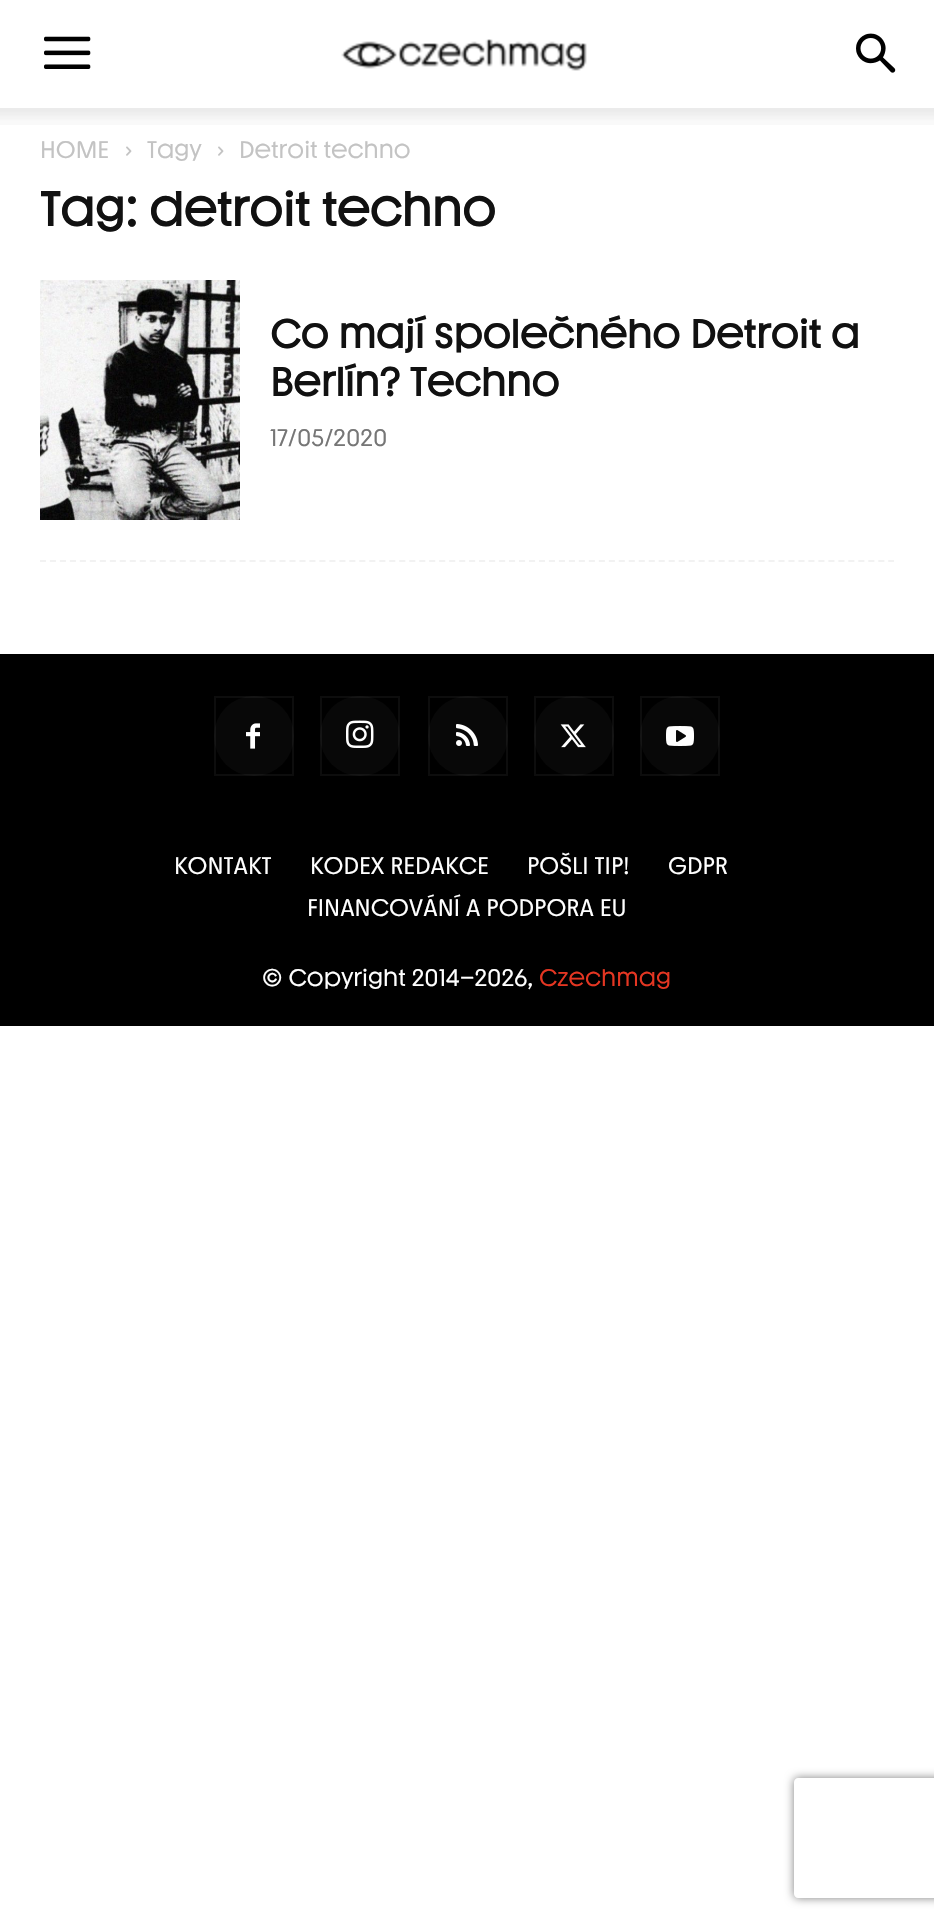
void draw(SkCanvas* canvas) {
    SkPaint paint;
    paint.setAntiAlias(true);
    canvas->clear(0xFFFFFFFF);
    canvas->drawImageRect(SkImages::DeferredFromEncodedData(SkData::MakeFromFileName("img1.png")), SkRect::MakeXYWH(44, 36, 47, 33), SkSamplingOptions());
    canvas->drawImageRect(SkImages::DeferredFromEncodedData(SkData::MakeFromFileName("img2.png")), SkRect::MakeXYWH(341, 39, 246, 32), SkSamplingOptions());
    canvas->drawImageRect(SkImages::DeferredFromEncodedData(SkData::MakeFromFileName("img3.png")), SkRect::MakeXYWH(856, 33, 40, 40), SkSamplingOptions());
    canvas->drawImageRect(SkImages::DeferredFromEncodedData(SkData::MakeFromFileName("img4.png")), SkRect::MakeXYWH(0, 108, 934, 17), SkSamplingOptions());
    SkFont font1(fontMgr->matchFamilyStyle("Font", SkFontStyle::Normal()), 24);
    font1.setSubpixel(true);
    paint.setColor(0xFFC3C3C3);
    canvas->drawString("HOME", 40, 158, font1, paint);
    canvas->drawImageRect(SkImages::DeferredFromEncodedData(SkData::MakeFromFileName("img5.png")), SkRect::MakeXYWH(126, 146, 6, 10), SkSamplingOptions());
    canvas->drawString("Tagy", 147, 158, font1, paint);
    canvas->drawImageRect(SkImages::DeferredFromEncodedData(SkData::MakeFromFileName("img5.png")), SkRect::MakeXYWH(218, 146, 6, 10), SkSamplingOptions());
    canvas->drawString("Detroit techno", 239, 158, font1, paint);
    SkFont font2(fontMgr->matchFamilyStyle("Font", SkFontStyle::Bold()), 48);
    font2.setSubpixel(true);
    paint.setColor(0xFF111111);
    canvas->drawString("Tag: detroit techno", 40, 226, font2, paint);
    paint.setStyle(SkPaint::kStroke_Style);
    paint.setStrokeWidth(2);
    paint.setColor(0xFFF2F2F2);
    paint.setPathEffect(SkDashPathEffect::Make({{6, 3.98f}}, 0));
    canvas->drawPath(SkPathBuilder().moveTo(40, 561).lineTo(894, 561).detach(), paint);
    paint.setPathEffect(nullptr);
    canvas->drawImageRect(SkImages::DeferredFromEncodedData(SkData::MakeFromFileName("img6.png")), SkRect::MakeXYWH(40, 280, 200, 240), SkSamplingOptions());
    SkFont font3(fontMgr->matchFamilyStyle("Font", SkFontStyle::Bold()), 40);
    font3.setSubpixel(true);
    paint.setStyle(SkPaint::kFill_Style);
    paint.setColor(0xFF111111);
    canvas->drawString("Co mají společného Detroit a", 270, 348, font3, paint);
    canvas->drawString("Berlín? Techno", 270, 396, font3, paint);
    paint.setColor(0xFF767676);
    canvas->drawString("17/05/2020", 270, 446, font1, paint);
    paint.setColor(0xFF000000);
    canvas->drawRect(SkRect::MakeXYWH(0, 654, 934, 372), paint);
    paint.setColor(0xFF080808);
    canvas->drawCircle(254, 736, 40, paint);
    canvas->drawImageRect(SkImages::DeferredFromEncodedData(SkData::MakeFromFileName("img7.png")), SkRect::MakeXYWH(246, 723, 14, 26), SkSamplingOptions());
    paint.setStyle(SkPaint::kStroke_Style);
    paint.setColor(0x0DFFFFFF);
    canvas->drawRect(SkRect::MakeXYWH(215, 697, 78, 78), paint);
    paint.setStyle(SkPaint::kFill_Style);
    paint.setColor(0xFF080808);
    canvas->drawCircle(360, 736, 40, paint);
    canvas->drawImageRect(SkImages::DeferredFromEncodedData(SkData::MakeFromFileName("img8.png")), SkRect::MakeXYWH(346, 720, 28, 28), SkSamplingOptions());
    paint.setStyle(SkPaint::kStroke_Style);
    paint.setColor(0x0DFFFFFF);
    canvas->drawRect(SkRect::MakeXYWH(321, 697, 78, 78), paint);
    paint.setStyle(SkPaint::kFill_Style);
    paint.setColor(0xFF080808);
    canvas->drawCircle(468, 736, 40, paint);
    canvas->drawImageRect(SkImages::DeferredFromEncodedData(SkData::MakeFromFileName("img9.png")), SkRect::MakeXYWH(456, 724, 22, 22), SkSamplingOptions());
    paint.setStyle(SkPaint::kStroke_Style);
    paint.setColor(0x0DFFFFFF);
    canvas->drawRect(SkRect::MakeXYWH(429, 697, 78, 78), paint);
    paint.setStyle(SkPaint::kFill_Style);
    paint.setColor(0xFF080808);
    canvas->drawCircle(574, 736, 40, paint);
    canvas->drawImageRect(SkImages::DeferredFromEncodedData(SkData::MakeFromFileName("img10.png")), SkRect::MakeXYWH(560, 724, 26, 24), SkSamplingOptions());
    paint.setStyle(SkPaint::kStroke_Style);
    paint.setColor(0x0DFFFFFF);
    canvas->drawRect(SkRect::MakeXYWH(535, 697, 78, 78), paint);
    paint.setStyle(SkPaint::kFill_Style);
    paint.setColor(0xFF080808);
    canvas->drawCircle(680, 736, 40, paint);
    canvas->drawImageRect(SkImages::DeferredFromEncodedData(SkData::MakeFromFileName("img11.png")), SkRect::MakeXYWH(666, 726, 28, 20), SkSamplingOptions());
    paint.setStyle(SkPaint::kStroke_Style);
    paint.setColor(0x0DFFFFFF);
    canvas->drawRect(SkRect::MakeXYWH(641, 697, 78, 78), paint);
    paint.setStyle(SkPaint::kFill_Style);
    paint.setColor(0xFFFFFFFF);
    canvas->drawString("KONTAKT", 174, 874, font1, paint);
    canvas->drawString("KODEX REDAKCE", 310, 874, font1, paint);
    canvas->drawString("POŠLI TIP!", 527, 874, font1, paint);
    canvas->drawString("GDPR", 668, 874, font1, paint);
    canvas->drawString("FINANCOVÁNÍ A PODPORA EU", 307, 916, font1, paint);
    canvas->drawString("© Copyright 2014–2026,", 262, 986, font1, paint);
    paint.setColor(0xFFE53622);
    canvas->drawString("Czechmag", 539, 986, font1, paint);
    canvas->save();
    canvas->clipPath(SkPathBuilder(SkPathFillType::kEvenOdd).moveTo(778, 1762).lineTo(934, 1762).lineTo(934, 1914).lineTo(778, 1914).close().moveTo(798, 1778).lineTo(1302, 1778).cubicTo(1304, 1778, 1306, 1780, 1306, 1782).lineTo(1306, 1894).cubicTo(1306, 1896, 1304, 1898, 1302, 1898).lineTo(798, 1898).cubicTo(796, 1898, 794, 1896, 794, 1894).lineTo(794, 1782).cubicTo(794, 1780, 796, 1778, 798, 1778).close().detach(), true);
    paint.setColor(0xFF808080);
    paint.setMaskFilter(SkMaskFilter::MakeBlur(kNormal_SkBlurStyle, 5));
    canvas->drawRoundRect(SkRect::MakeXYWH(794, 1778, 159, 120), 4, 4, paint);
    paint.setMaskFilter(nullptr);
    canvas->restore();
}
